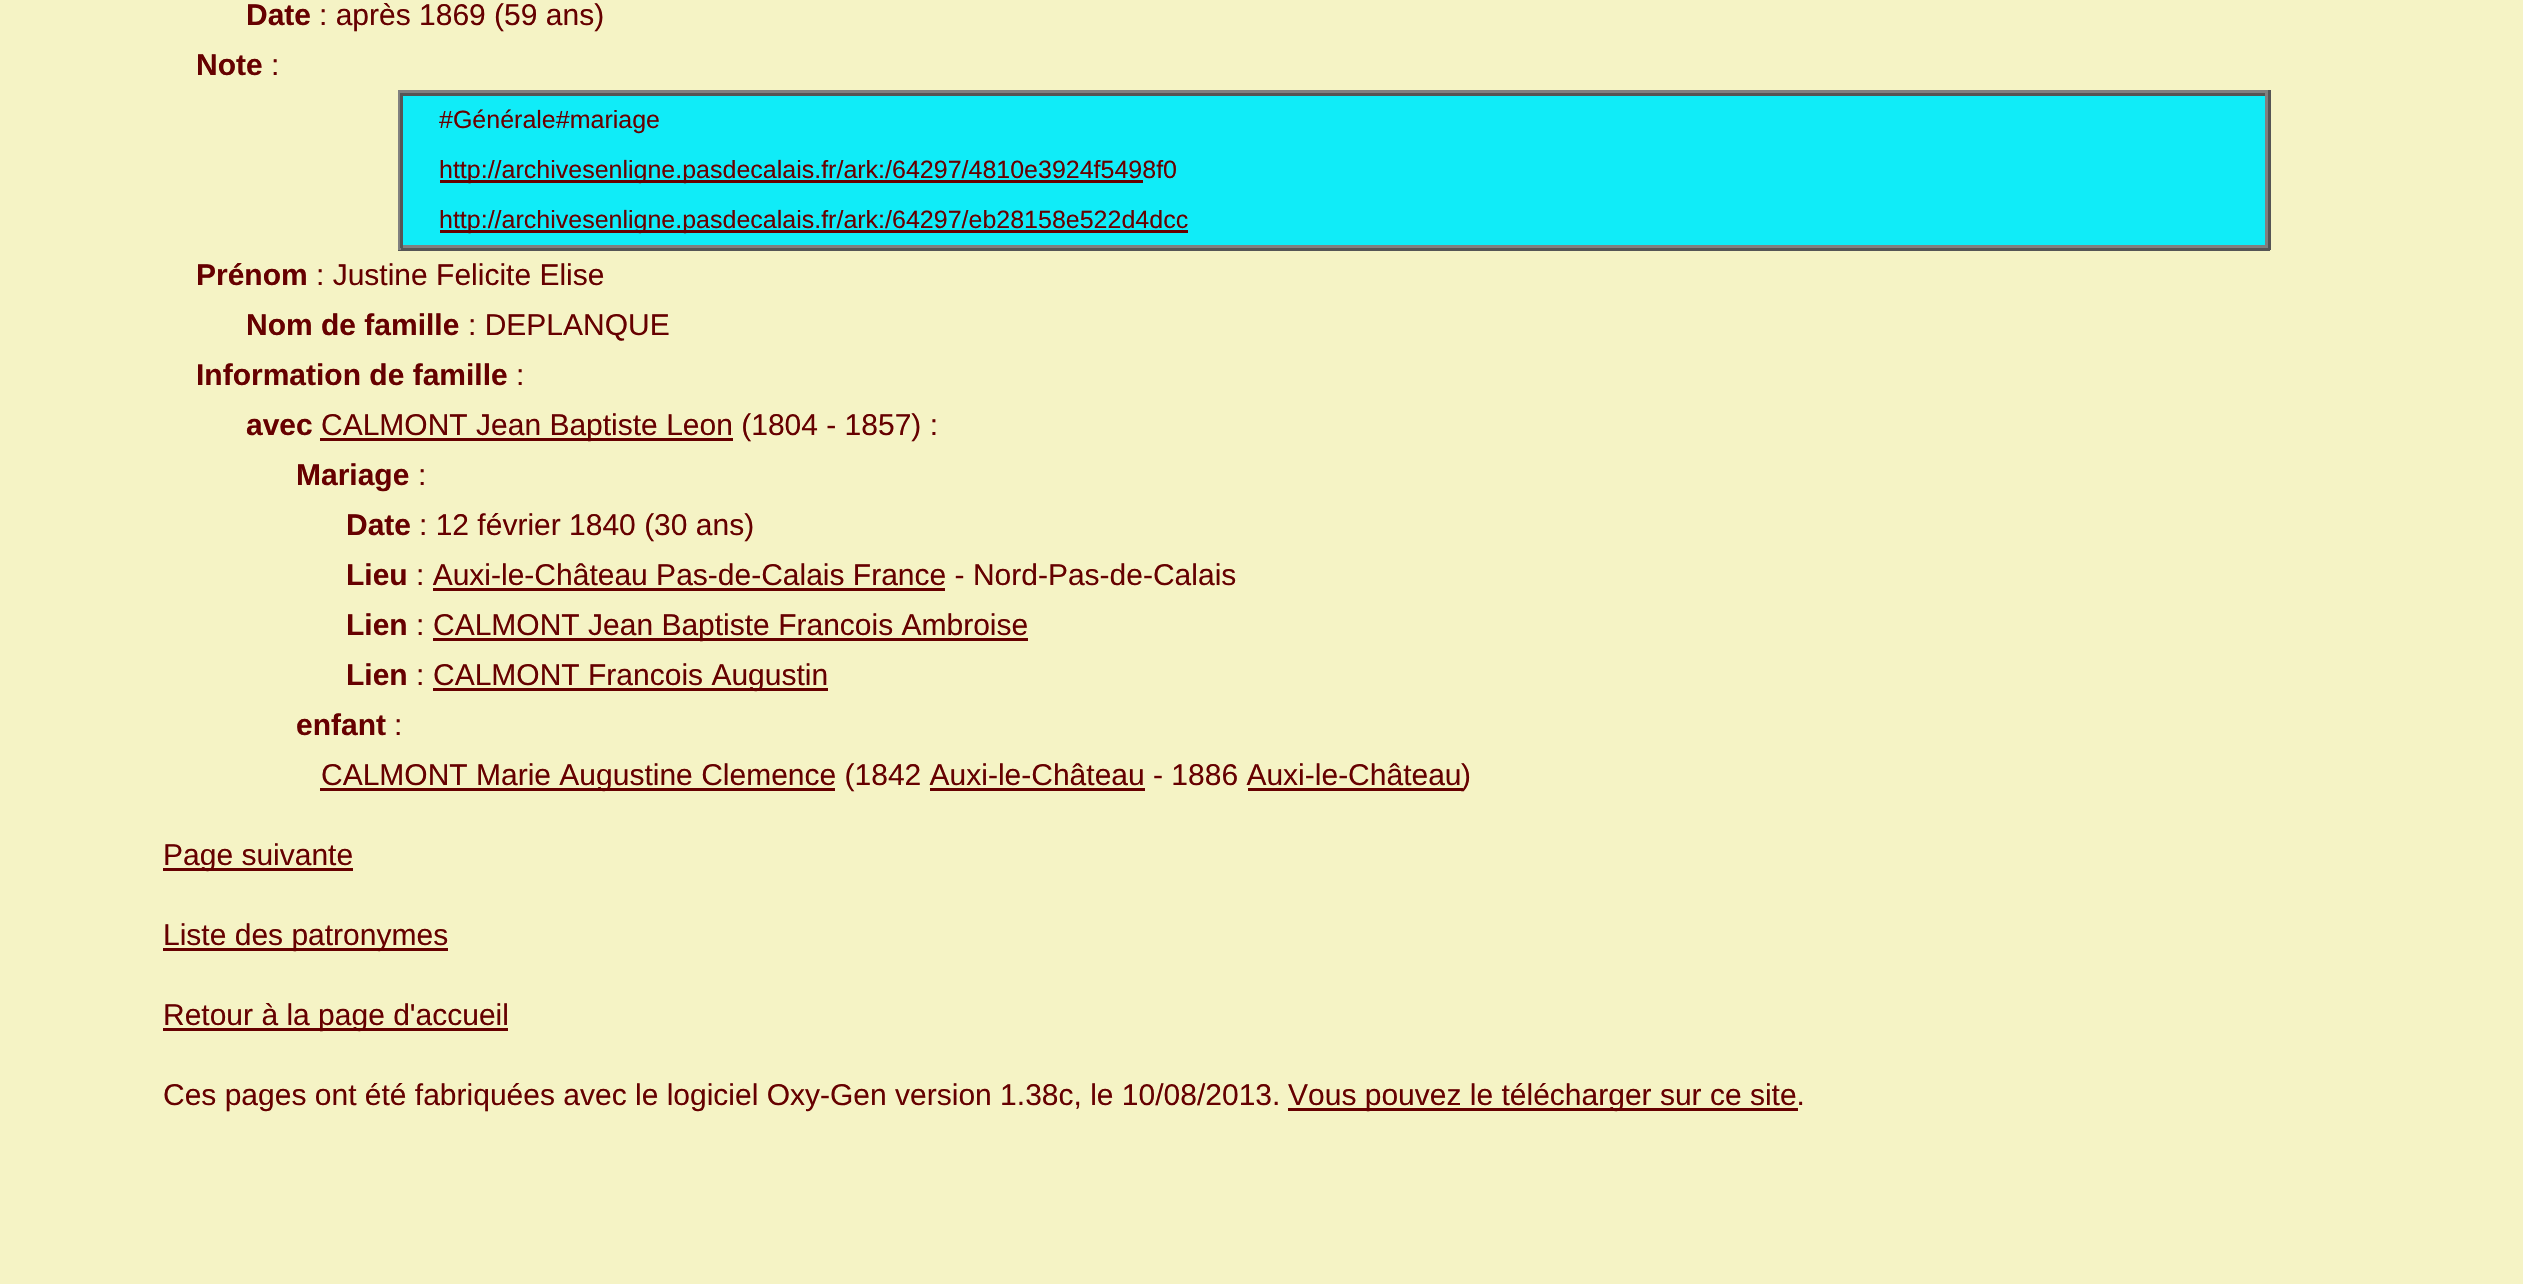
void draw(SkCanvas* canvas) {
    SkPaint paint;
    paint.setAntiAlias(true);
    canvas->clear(0xFFF5F3C5);
    SkFont font1(fontMgr->matchFamilyStyle("Liberation Sans", SkFontStyle::Bold()), 30);
    font1.setSubpixel(true);
    paint.setColor(0xFF660000);
    canvas->drawString("Date", 246, 25, font1, paint);
    SkFont font2(fontMgr->matchFamilyStyle("Liberation Sans", SkFontStyle::Normal()), 30);
    font2.setSubpixel(true);
    canvas->drawString(": après 1869 (59 ans)", 319, 25, font2, paint);
    canvas->drawString("Note", 196, 75, font1, paint);
    canvas->drawString(":", 271, 75, font2, paint);
    paint.setColor(0xFF10ECF8);
    canvas->drawRect(SkRect::MakeXYWH(403, 96, 1862, 149), paint);
    paint.setColor(0xFF808080);
    canvas->drawRect(SkRect::MakeXYWH(398, 90, 1872, 3), paint);
    paint.setColor(0xFF555555);
    canvas->drawRect(SkRect::MakeXYWH(2268, 90, 3, 160), paint);
    canvas->drawRect(SkRect::MakeXYWH(398, 248, 1872, 3), paint);
    paint.setColor(0xFF808080);
    canvas->drawRect(SkRect::MakeXYWH(398, 90, 3, 160), paint);
    paint.setColor(0xFF555555);
    canvas->drawRect(SkRect::MakeXYWH(400, 93, 1868, 3), paint);
    paint.setColor(0xFF808080);
    canvas->drawRect(SkRect::MakeXYWH(2265, 93, 3, 155), paint);
    canvas->drawRect(SkRect::MakeXYWH(400, 245, 1868, 3), paint);
    paint.setColor(0xFF555555);
    canvas->drawRect(SkRect::MakeXYWH(400, 93, 3, 155), paint);
    SkFont font3(fontMgr->matchFamilyStyle("Liberation Sans", SkFontStyle::Normal()), 25);
    font3.setSubpixel(true);
    paint.setColor(0xFF660000);
    canvas->drawString("#Générale#mariage", 439, 128, font3, paint);
    canvas->drawRect(SkRect::MakeXYWH(440, 180, 703, 3), paint);
    canvas->drawString("http://archivesenligne.pasdecalais.fr/ark:/64297/4810e3924f5498f0", 439, 178, font3, paint);
    canvas->drawRect(SkRect::MakeXYWH(440, 230, 748, 3), paint);
    canvas->drawString("http://archivesenligne.pasdecalais.fr/ark:/64297/eb28158e522d4dcc", 439, 228, font3, paint);
    canvas->drawString("Prénom", 196, 285, font1, paint);
    canvas->drawString(": Justine Felicite Elise", 316, 285, font2, paint);
    canvas->drawString("Nom de famille", 246, 335, font1, paint);
    canvas->drawString(": DEPLANQUE", 468, 335, font2, paint);
    canvas->drawString("Information de famille", 196, 385, font1, paint);
    canvas->drawString(":", 516, 385, font2, paint);
    canvas->drawString("avec", 246, 435, font1, paint);
    canvas->drawRect(SkRect::MakeXYWH(320, 438, 413, 3), paint);
    canvas->drawString("CALMONT Jean Baptiste Leon (1804 - 1857) :", 321, 435, font2, paint);
    canvas->drawString("Mariage", 296, 485, font1, paint);
    canvas->drawString(":", 418, 485, font2, paint);
    canvas->drawString("Date", 346, 535, font1, paint);
    canvas->drawString(": 12 février 1840 (30 ans)", 419, 535, font2, paint);
    canvas->drawString("Lieu", 346, 585, font1, paint);
    canvas->drawString(": Auxi-le-Château Pas-de-Calais France - Nord-Pas-de-Calais", 416, 585, font2, paint);
    canvas->drawRect(SkRect::MakeXYWH(433, 588, 512, 3), paint);
    canvas->drawString("Lien", 346, 635, font1, paint);
    canvas->drawString(":", 416, 635, font2, paint);
    canvas->drawRect(SkRect::MakeXYWH(433, 638, 595, 3), paint);
    canvas->drawString("CALMONT Jean Baptiste Francois Ambroise", 433, 635, font2, paint);
    canvas->drawString("Lien", 346, 685, font1, paint);
    canvas->drawString(":", 416, 685, font2, paint);
    canvas->drawRect(SkRect::MakeXYWH(433, 688, 395, 3), paint);
    canvas->drawString("CALMONT Francois Augustin", 433, 685, font2, paint);
    canvas->drawString("enfant", 296, 735, font1, paint);
    canvas->drawString(":", 394, 735, font2, paint);
    canvas->drawRect(SkRect::MakeXYWH(320, 788, 515, 3), paint);
    canvas->drawString("CALMONT Marie Augustine Clemence (1842 Auxi-le-Château - 1886 Auxi-le-Château", 321, 785, font2, paint);
    canvas->drawRect(SkRect::MakeXYWH(1248, 788, 215, 3), paint);
    canvas->drawString(")", 1461, 785, font2, paint);
    canvas->drawRect(SkRect::MakeXYWH(930, 788, 215, 3), paint);
    canvas->drawRect(SkRect::MakeXYWH(163, 868, 190, 3), paint);
    canvas->drawString("Page suivante", 163, 865, font2, paint);
    canvas->drawRect(SkRect::MakeXYWH(163, 948, 285, 3), paint);
    canvas->drawString("Liste des patronymes", 163, 945, font2, paint);
    canvas->drawRect(SkRect::MakeXYWH(163, 1028, 345, 3), paint);
    canvas->drawString("Retour à la page d'accueil", 163, 1025, font2, paint);
    canvas->drawString("Ces pages ont été fabriquées avec le logiciel Oxy-Gen version 1.38c, le 10/08/2013.", 163, 1105, font2, paint);
    canvas->drawRect(SkRect::MakeXYWH(1288, 1108, 510, 3), paint);
    canvas->drawString("Vous pouvez le télécharger sur ce site.", 1288, 1105, font2, paint);
}
